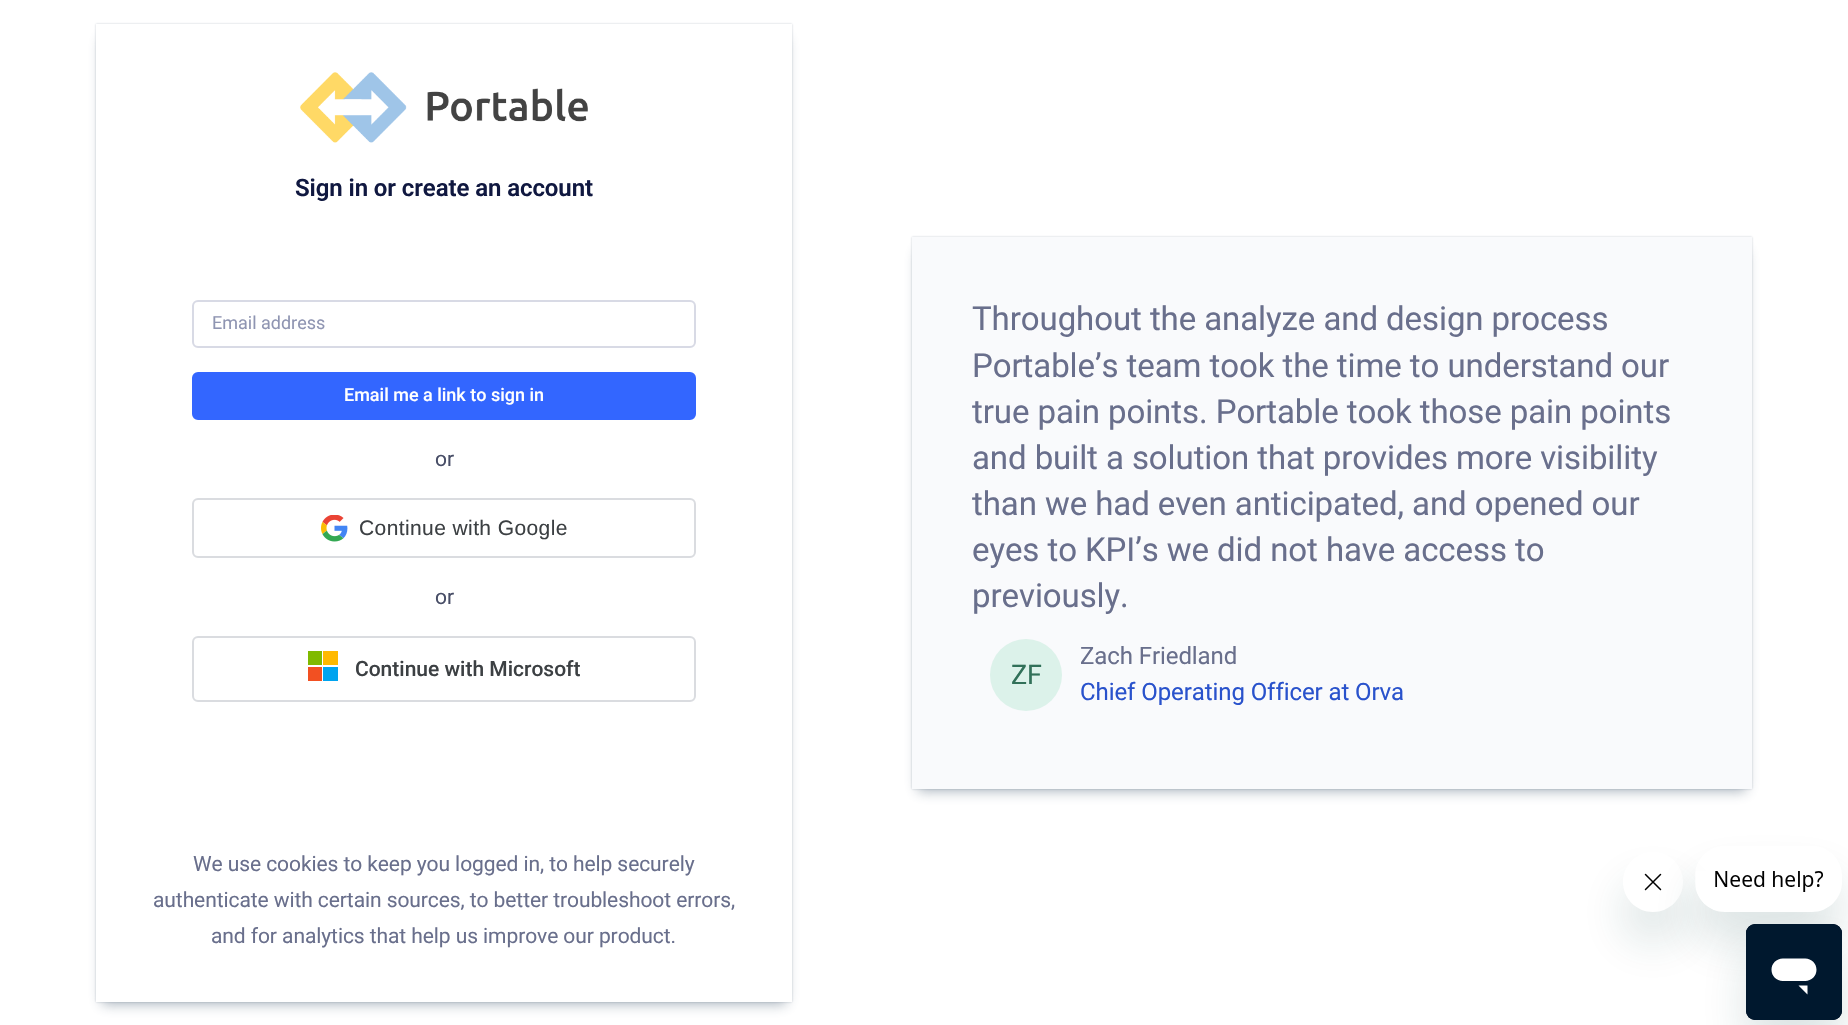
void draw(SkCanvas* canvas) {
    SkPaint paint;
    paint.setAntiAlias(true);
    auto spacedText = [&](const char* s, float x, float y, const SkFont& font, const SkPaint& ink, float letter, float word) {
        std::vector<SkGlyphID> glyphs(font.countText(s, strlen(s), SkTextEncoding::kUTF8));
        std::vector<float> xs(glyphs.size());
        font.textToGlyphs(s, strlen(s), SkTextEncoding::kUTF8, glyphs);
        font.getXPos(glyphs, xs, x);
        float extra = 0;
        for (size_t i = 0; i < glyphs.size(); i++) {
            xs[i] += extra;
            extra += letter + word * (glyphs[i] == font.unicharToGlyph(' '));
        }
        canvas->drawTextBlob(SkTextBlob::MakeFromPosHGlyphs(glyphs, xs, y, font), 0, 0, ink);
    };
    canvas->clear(0xFFFFFFFF);
    canvas->save();
    canvas->clipPath(SkPathBuilder(SkPathFillType::kEvenOdd).moveTo(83, 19).lineTo(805, 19).lineTo(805, 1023).lineTo(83, 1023).close().moveTo(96, 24).lineTo(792, 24).lineTo(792, 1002).lineTo(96, 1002).close().detach(), true);
    paint.setColor(0x78435A6F);
    paint.setMaskFilter(SkMaskFilter::MakeBlur(kNormal_SkBlurStyle, 6));
    canvas->drawRect(SkRect::MakeXYWH(102, 38, 684, 966), paint);
    paint.setMaskFilter(nullptr);
    canvas->restore();
    canvas->save();
    canvas->clipPath(SkPathBuilder(SkPathFillType::kEvenOdd).moveTo(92, 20).lineTo(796, 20).lineTo(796, 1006).lineTo(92, 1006).close().moveTo(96, 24).lineTo(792, 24).lineTo(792, 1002).lineTo(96, 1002).close().detach(), true);
    paint.setColor(0x4D435A6F);
    paint.setMaskFilter(SkMaskFilter::MakeBlur(kNormal_SkBlurStyle, 1));
    canvas->drawRect(SkRect::MakeXYWH(96, 24, 696, 978), paint);
    paint.setMaskFilter(nullptr);
    canvas->restore();
    canvas->drawImageRect(SkImages::DeferredFromEncodedData(SkData::MakeFromFileName("img1.png")), SkRect::MakeXYWH(300, 72, 288, 71), SkSamplingOptions());
    SkFont font1(fontMgr->matchFamilyStyle("Roboto", SkFontStyle(600, SkFontStyle::kNormal_Width, SkFontStyle::kUpright_Slant)), 24);
    font1.setSubpixel(true);
    paint.setColor(0xFF101840);
    spacedText("Sign in or create an account", 295, 196, font1, paint, -0.08f, 0);
    paint.setStyle(SkPaint::kStroke_Style);
    paint.setStrokeWidth(2);
    paint.setColor(0xFFD8DAE5);
    canvas->drawRoundRect(SkRect::MakeXYWH(193, 301, 502, 46), 5, 5, paint);
    SkFont font2(fontMgr->matchFamilyStyle("Roboto", SkFontStyle::Normal()), 18);
    font2.setSubpixel(true);
    paint.setStyle(SkPaint::kFill_Style);
    paint.setColor(0xFF8F95B2);
    canvas->drawString("Email address", 212, 329, font2, paint);
    paint.setColor(0xFF3366FF);
    canvas->drawRoundRect(SkRect::MakeXYWH(193, 373, 502, 46), 5, 5, paint);
    paint.setStyle(SkPaint::kStroke_Style);
    canvas->drawRoundRect(SkRect::MakeXYWH(193, 373, 502, 46), 5, 5, paint);
    SkFont font3(fontMgr->matchFamilyStyle("Roboto", SkFontStyle(500, SkFontStyle::kNormal_Width, SkFontStyle::kUpright_Slant)), 18);
    font3.setSubpixel(true);
    paint.setStyle(SkPaint::kFill_Style);
    paint.setColor(0xFFFFFFFF);
    canvas->drawString("Email me a link to sign in", 344, 401, font3, paint);
    SkFont font4(fontMgr->matchFamilyStyle("Roboto", SkFontStyle::Normal()), 21);
    font4.setSubpixel(true);
    paint.setColor(0xFF474D66);
    spacedText("or", 435, 466, font4, paint, -0.08f, 0);
    paint.setStyle(SkPaint::kStroke_Style);
    paint.setColor(0xFFDADCE0);
    canvas->drawRoundRect(SkRect::MakeXYWH(193, 499, 502, 58), 5, 5, paint);
    canvas->drawImageRect(SkImages::DeferredFromEncodedData(SkData::MakeFromFileName("img2.png")), SkRect::MakeXYWH(321, 515, 27, 27), SkSamplingOptions());
    SkFont font5(fontMgr->matchFamilyStyle("Liberation Sans", SkFontStyle::Normal()), 21);
    font5.setSubpixel(true);
    paint.setStyle(SkPaint::kFill_Style);
    paint.setColor(0xFF3C4043);
    spacedText("Continue with Google", 359, 535, font5, paint, 0.4f, 0);
    paint.setColor(0xFF474D66);
    spacedText("or", 435, 604, font4, paint, -0.08f, 0);
    paint.setStyle(SkPaint::kStroke_Style);
    paint.setColor(0xFFDADCE0);
    canvas->drawRoundRect(SkRect::MakeXYWH(193, 637, 502, 64), 5, 5, paint);
    paint.setStyle(SkPaint::kFill_Style);
    paint.setColor(0xFF7FBA00);
    canvas->drawRect(SkRect::MakeXYWH(308, 651, 14, 14), paint);
    paint.setColor(0xFFFFB900);
    canvas->drawRect(SkRect::MakeXYWH(323, 651, 15, 14), paint);
    paint.setColor(0xFFF25022);
    canvas->drawRect(SkRect::MakeXYWH(308, 667, 14, 14), paint);
    paint.setColor(0xFF00A4EF);
    canvas->drawRect(SkRect::MakeXYWH(323, 667, 15, 14), paint);
    SkFont font6(fontMgr->matchFamilyStyle("Roboto", SkFontStyle(500, SkFontStyle::kNormal_Width, SkFontStyle::kUpright_Slant)), 21);
    font6.setSubpixel(true);
    paint.setColor(0xFF3C4043);
    canvas->drawString("Continue with Microsoft", 355, 676, font6, paint);
    paint.setColor(0xFF696F8C);
    spacedText("We use cookies to keep you logged in, to help securely", 193, 871, font4, paint, -0.08f, 0);
    spacedText("authenticate with certain sources, to better troubleshoot errors,", 153, 907, font4, paint, -0.08f, 0);
    spacedText("and for analytics that help us improve our product.", 211, 943, font4, paint, -0.08f, 0);
    paint.setColor(0x78435A6F);
    paint.setMaskFilter(SkMaskFilter::MakeBlur(kNormal_SkBlurStyle, 6));
    canvas->drawRect(SkRect::MakeXYWH(918, 251, 828, 540), paint);
    paint.setMaskFilter(nullptr);
    paint.setColor(0x4D435A6F);
    paint.setMaskFilter(SkMaskFilter::MakeBlur(kNormal_SkBlurStyle, 1));
    canvas->drawRect(SkRect::MakeXYWH(912, 237, 840, 552), paint);
    paint.setMaskFilter(nullptr);
    paint.setColor(0xFFF9FAFC);
    canvas->drawRect(SkRect::MakeXYWH(912, 237, 840, 552), paint);
    SkFont font7(fontMgr->matchFamilyStyle("Roboto", SkFontStyle::Normal()), 33);
    font7.setSubpixel(true);
    paint.setColor(0xFF696F8C);
    spacedText("Throughout the analyze and design process", 972, 330, font7, paint, -0.08f, 0);
    spacedText("Portable’s team took the time to understand our", 972, 377, font7, paint, -0.08f, 0);
    spacedText("true pain points. Portable took those pain points", 972, 423, font7, paint, -0.08f, 0);
    spacedText("and built a solution that provides more visibility", 972, 469, font7, paint, -0.08f, 0);
    spacedText("than we had even anticipated, and opened our", 972, 515, font7, paint, -0.08f, 0);
    spacedText("eyes to KPI’s we did not have access to", 972, 561, font7, paint, -0.08f, 0);
    spacedText("previously.", 972, 607, font7, paint, -0.08f, 0);
    paint.setColor(0xFFDCF2EA);
    canvas->drawCircle(1026, 675, 36, paint);
    SkFont font8(fontMgr->matchFamilyStyle("Roboto", SkFontStyle::Normal()), 27);
    font8.setSubpixel(true);
    paint.setColor(0xFF317159);
    spacedText("ZF", 1011, 684, font8, paint, -0.08f, 0);
    SkFont font9(fontMgr->matchFamilyStyle("Roboto", SkFontStyle::Normal()), 24);
    font9.setSubpixel(true);
    paint.setColor(0xFF696F8C);
    spacedText("Zach Friedland", 1080, 664, font9, paint, -0.08f, 0);
    paint.setColor(0xFF2952CC);
    spacedText("Chief Operating Officer at Orva", 1080, 700, font9, paint, -0.08f, 0);
    canvas->save();
    canvas->clipPath(SkPathBuilder(SkPathFillType::kEvenOdd).moveTo(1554, 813).lineTo(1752, 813).lineTo(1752, 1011).lineTo(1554, 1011).close().moveTo(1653, 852).cubicTo(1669.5f, 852, 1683, 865.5f, 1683, 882).cubicTo(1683, 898.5f, 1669.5f, 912, 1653, 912).cubicTo(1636.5f, 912, 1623, 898.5f, 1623, 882).cubicTo(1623, 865.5f, 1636.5f, 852, 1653, 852).close().detach(), true);
    paint.setColor(0x2617494D);
    paint.setMaskFilter(SkMaskFilter::MakeBlur(kNormal_SkBlurStyle, 22.5f));
    canvas->drawRoundRect(SkRect::MakeXYWH(1623, 882, 60, 60), 30, 30, paint);
    paint.setMaskFilter(nullptr);
    canvas->restore();
    canvas->drawImageRect(SkImages::DeferredFromEncodedData(SkData::MakeFromFileName("img4.png")), SkRect::MakeXYWH(1644, 873, 18, 18), SkSamplingOptions());
    canvas->save();
    canvas->clipPath(SkPathBuilder(SkPathFillType::kEvenOdd).moveTo(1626, 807).lineTo(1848, 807).lineTo(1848, 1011).lineTo(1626, 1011).close().moveTo(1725, 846).lineTo(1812, 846).cubicTo(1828.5f, 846, 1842, 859.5f, 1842, 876).lineTo(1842, 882).cubicTo(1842, 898.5f, 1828.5f, 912, 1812, 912).lineTo(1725, 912).cubicTo(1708.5f, 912, 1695, 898.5f, 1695, 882).lineTo(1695, 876).cubicTo(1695, 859.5f, 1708.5f, 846, 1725, 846).close().detach(), true);
    paint.setMaskFilter(SkMaskFilter::MakeBlur(kNormal_SkBlurStyle, 22.5f));
    canvas->drawRoundRect(SkRect::MakeXYWH(1695, 876, 147, 66), 30, 30, paint);
    paint.setMaskFilter(nullptr);
    canvas->restore();
    canvas->drawImageRect(SkImages::DeferredFromEncodedData(SkData::MakeFromFileName("img3.png")), SkRect::MakeXYWH(1696, 871, 127, 39), SkSamplingOptions());
    paint.setMaskFilter(SkMaskFilter::MakeBlur(kNormal_SkBlurStyle, 22.5f));
    canvas->drawRoundRect(SkRect::MakeXYWH(1746, 954, 96, 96), 9, 9, paint);
    paint.setMaskFilter(nullptr);
    canvas->drawImageRect(SkImages::DeferredFromEncodedData(SkData::MakeFromFileName("img5.png")), SkRect::MakeXYWH(1746, 924, 96, 96), SkSamplingOptions());
}
